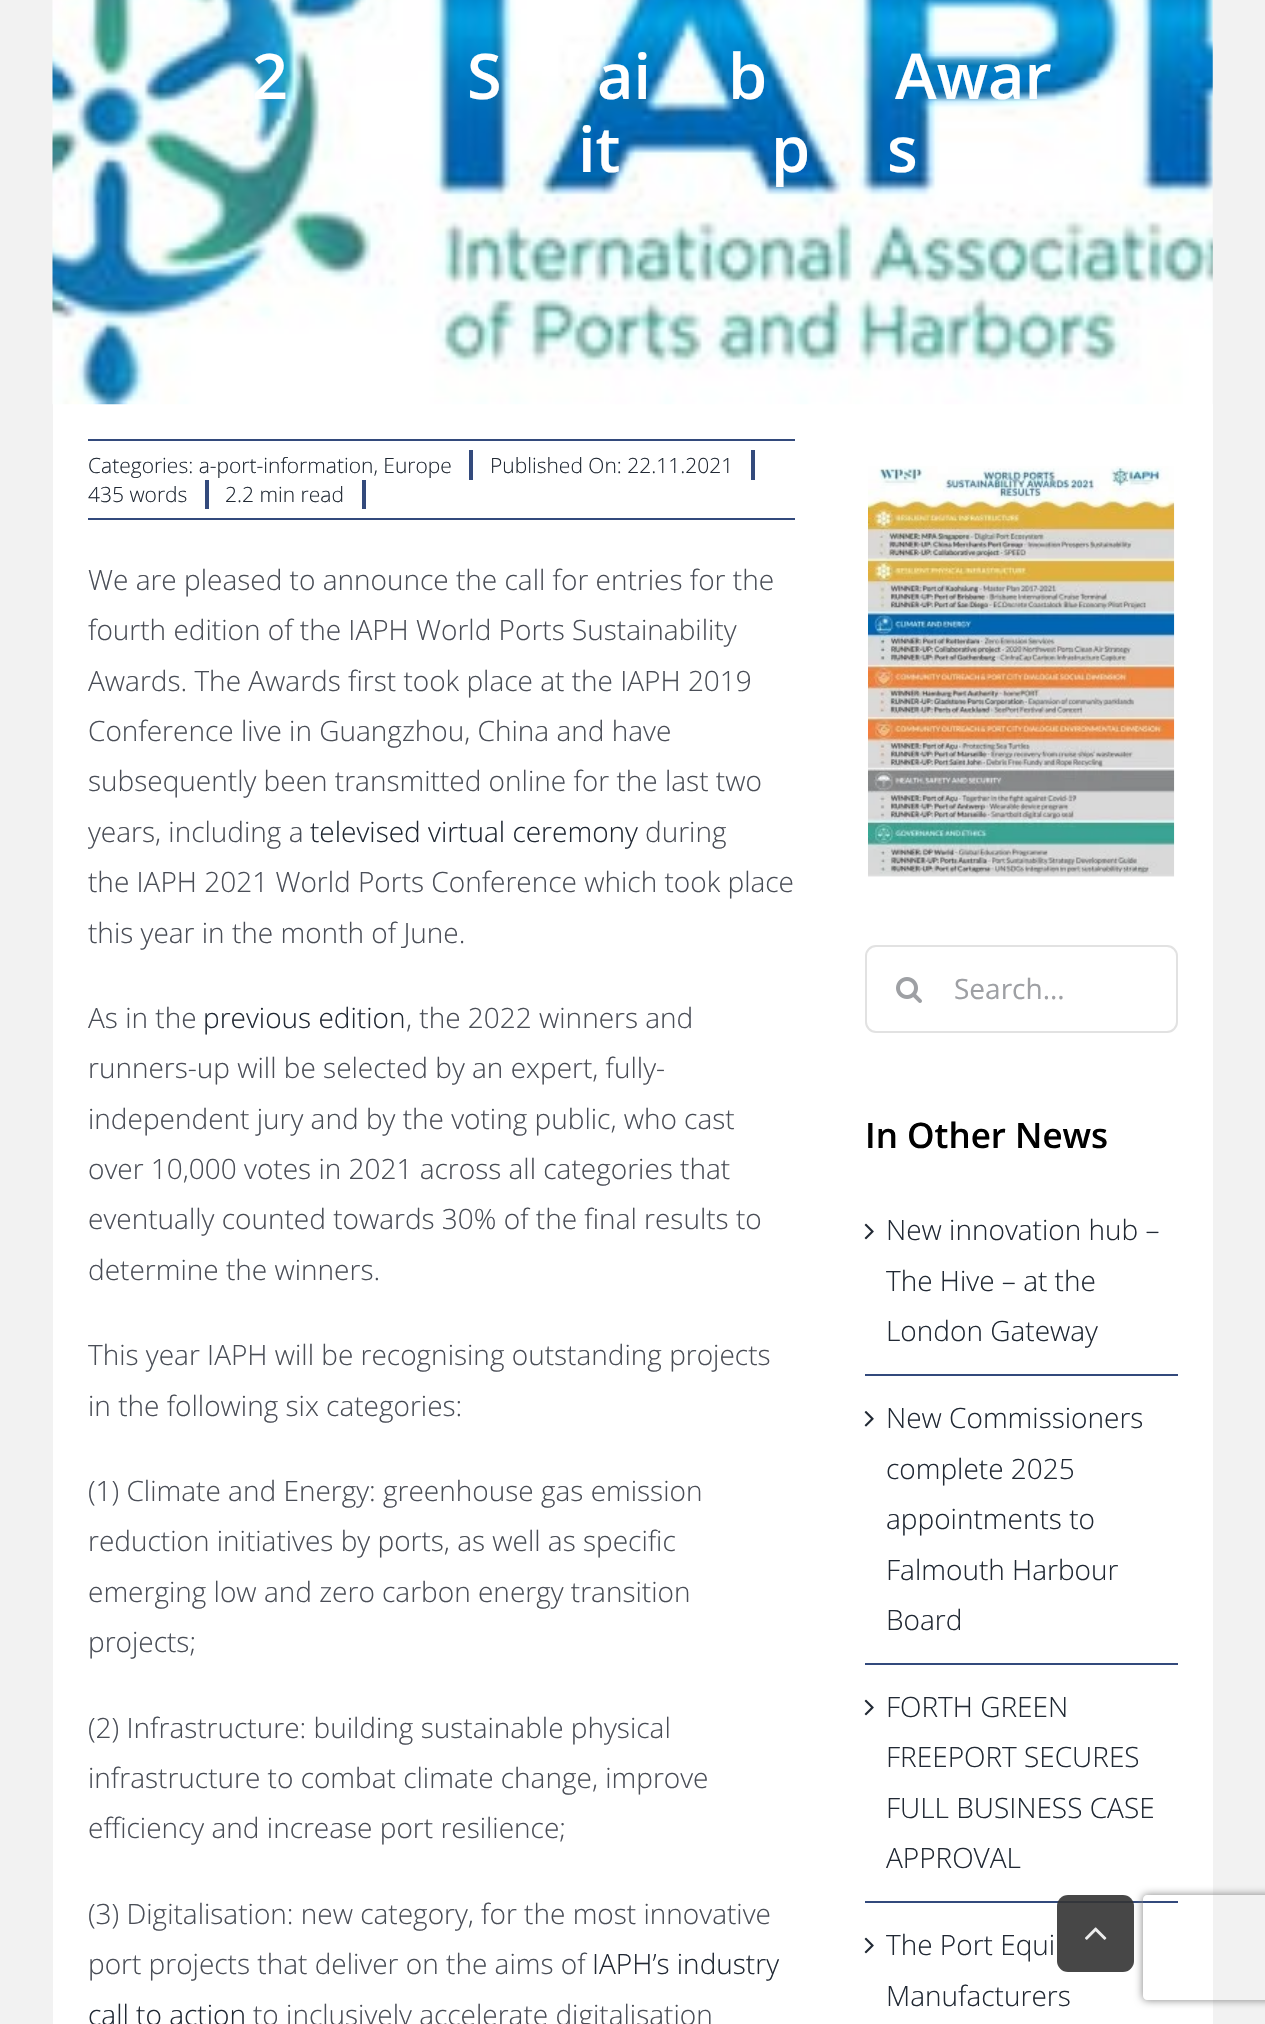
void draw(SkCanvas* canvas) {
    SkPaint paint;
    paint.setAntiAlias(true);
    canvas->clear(0xFFF2F2F2);
    paint.setColor(0xFFFFFFFF);
    canvas->drawRect(SkRect::MakeXYWH(53, 404, 1160, 1620), paint);
    canvas->drawImageRect(SkImages::DeferredFromEncodedData(SkData::MakeFromFileName("img1.png")), SkRect::MakeXYWH(52, 0, 1161, 405), SkSamplingOptions());
    SkFont font1(fontMgr->matchFamilyStyle("Open Sans", SkFontStyle(600, SkFontStyle::kNormal_Width, SkFontStyle::kUpright_Slant)), 63);
    font1.setSubpixel(true);
    canvas->drawString("2", 252, 99, font1, paint);
    canvas->drawString("S", 467, 99, font1, paint);
    canvas->drawString("ai", 597, 99, font1, paint);
    canvas->drawString("b", 728, 99, font1, paint);
    canvas->drawString("Awar", 895, 99, font1, paint);
    canvas->drawString("it", 578, 172, font1, paint);
    canvas->drawString("p", 771, 172, font1, paint);
    canvas->drawString("s", 887, 172, font1, paint);
    paint.setColor(0xFF334A7C);
    canvas->drawRect(SkRect::MakeXYWH(88, 439, 707, 2), paint);
    canvas->drawRect(SkRect::MakeXYWH(88, 518, 707, 2), paint);
    canvas->drawRect(SkRect::MakeXYWH(469, 450, 4, 30), paint);
    SkFont font2(fontMgr->matchFamilyStyle("Open Sans", SkFontStyle(300, SkFontStyle::kNormal_Width, SkFontStyle::kUpright_Slant)), 21);
    font2.setSubpixel(true);
    paint.setColor(0xFF212934);
    canvas->drawString("Categories: a-port-information, Europe", 88, 473, font2, paint);
    paint.setColor(0xFF334A7C);
    canvas->drawRect(SkRect::MakeXYWH(751, 450, 4, 30), paint);
    paint.setColor(0xFF212934);
    canvas->drawString("Published On: 22.11.2021", 490, 473, font2, paint);
    paint.setColor(0xFF334A7C);
    canvas->drawRect(SkRect::MakeXYWH(205, 480, 4, 29), paint);
    paint.setColor(0xFF212934);
    canvas->drawString("435 words", 88, 502, font2, paint);
    paint.setColor(0xFF334A7C);
    canvas->drawRect(SkRect::MakeXYWH(362, 480, 4, 29), paint);
    paint.setColor(0xFF212934);
    canvas->drawString("2.2 min read", 225, 502, font2, paint);
    SkFont font3(fontMgr->matchFamilyStyle("Open Sans", SkFontStyle(300, SkFontStyle::kNormal_Width, SkFontStyle::kUpright_Slant)), 28);
    font3.setSubpixel(true);
    paint.setColor(0xFF4A4E57);
    canvas->drawString("We are pleased to announce the call for entries for the", 88, 590, font3, paint);
    canvas->drawString("fourth edition of the IAPH World Ports Sustainability", 88, 640, font3, paint);
    canvas->drawString("Awards. The Awards first took place at the IAPH 2019", 88, 691, font3, paint);
    canvas->drawString("Conference live in Guangzhou, China and have", 88, 741, font3, paint);
    canvas->drawString("subsequently been transmitted online for the last two", 88, 791, font3, paint);
    canvas->drawString("years, including a", 88, 842, font3, paint);
    paint.setColor(0xFF212934);
    canvas->drawString("televised virtual ceremony", 310, 842, font3, paint);
    paint.setColor(0xFF4A4E57);
    canvas->drawString("during", 645, 842, font3, paint);
    canvas->drawString("the IAPH 2021 World Ports Conference which took place", 88, 892, font3, paint);
    canvas->drawString("this year in the month of June.", 88, 943, font3, paint);
    canvas->drawString("As in the", 88, 1028, font3, paint);
    paint.setColor(0xFF212934);
    canvas->drawString("previous edition", 203, 1028, font3, paint);
    paint.setColor(0xFF4A4E57);
    canvas->drawString(", the 2022 winners and", 406, 1028, font3, paint);
    canvas->drawString("runners-up will be selected by an expert, fully-", 88, 1078, font3, paint);
    canvas->drawString("independent jury and by the voting public, who cast", 88, 1129, font3, paint);
    canvas->drawString("over 10,000 votes in 2021 across all categories that", 88, 1179, font3, paint);
    canvas->drawString("eventually counted towards 30% of the final results to", 88, 1229, font3, paint);
    canvas->drawString("determine the winners.", 88, 1280, font3, paint);
    canvas->drawString("This year IAPH will be recognising outstanding projects", 88, 1365, font3, paint);
    canvas->drawString("in the following six categories:", 88, 1416, font3, paint);
    canvas->drawString("(1) Climate and Energy: greenhouse gas emission", 88, 1501, font3, paint);
    canvas->drawString("reduction initiatives by ports, as well as specific", 88, 1551, font3, paint);
    canvas->drawString("emerging low and zero carbon energy transition", 88, 1602, font3, paint);
    canvas->drawString("projects;", 88, 1652, font3, paint);
    canvas->drawString("(2) Infrastructure: building sustainable physical", 88, 1738, font3, paint);
    canvas->drawString("infrastructure to combat climate change, improve", 88, 1788, font3, paint);
    canvas->drawString("efficiency and increase port resilience;", 88, 1838, font3, paint);
    canvas->drawString("(3) Digitalisation: new category, for the most innovative", 88, 1924, font3, paint);
    canvas->drawString("port projects that deliver on the aims of", 88, 1974, font3, paint);
    paint.setColor(0xFF212934);
    canvas->drawString("IAPH’s industry", 592, 1974, font3, paint);
    canvas->drawString("call to action", 88, 2025, font3, paint);
    paint.setColor(0xFF4A4E57);
    canvas->drawString("to inclusively accelerate digitalisation", 253, 2025, font3, paint);
    canvas->drawImageRect(SkImages::DeferredFromEncodedData(SkData::MakeFromFileName("img2.png")), SkRect::MakeXYWH(868, 466, 307, 411), SkSamplingOptions());
    paint.setStyle(SkPaint::kStroke_Style);
    paint.setStrokeWidth(2);
    paint.setColor(0xFFE2E2E2);
    canvas->drawRoundRect(SkRect::MakeXYWH(866, 946, 311, 86), 10, 10, paint);
    canvas->drawImageRect(SkImages::DeferredFromEncodedData(SkData::MakeFromFileName("img3.png")), SkRect::MakeXYWH(896, 977, 26, 26), SkSamplingOptions());
    SkFont font4(fontMgr->matchFamilyStyle("Open Sans", SkFontStyle::Normal()), 28);
    font4.setSubpixel(true);
    paint.setStyle(SkPaint::kFill_Style);
    paint.setColor(0xFF9EA0A4);
    canvas->drawString("Search...", 954, 999, font4, paint);
    SkFont font5(fontMgr->matchFamilyStyle("Open Sans", SkFontStyle(600, SkFontStyle::kNormal_Width, SkFontStyle::kUpright_Slant)), 35);
    font5.setSubpixel(true);
    paint.setColor(0xFF000000);
    canvas->drawString("In Other News", 865, 1148, font5, paint);
    paint.setColor(0xFF334A7C);
    canvas->drawRect(SkRect::MakeXYWH(865, 1374, 313, 2), paint);
    canvas->drawImageRect(SkImages::DeferredFromEncodedData(SkData::MakeFromFileName("img4.png")), SkRect::MakeXYWH(864, 1223, 10, 17), SkSamplingOptions());
    paint.setColor(0xFF212934);
    canvas->drawString("New innovation hub –", 886, 1240, font3, paint);
    canvas->drawString("The Hive – at the", 886, 1291, font3, paint);
    canvas->drawString("London Gateway", 886, 1341, font3, paint);
    paint.setColor(0xFF334A7C);
    canvas->drawRect(SkRect::MakeXYWH(865, 1663, 313, 2), paint);
    canvas->drawImageRect(SkImages::DeferredFromEncodedData(SkData::MakeFromFileName("img5.png")), SkRect::MakeXYWH(864, 1411, 10, 16), SkSamplingOptions());
    paint.setColor(0xFF212934);
    canvas->drawString("New Commissioners", 886, 1428, font3, paint);
    canvas->drawString("complete 2025", 886, 1479, font3, paint);
    canvas->drawString("appointments to", 886, 1529, font3, paint);
    canvas->drawString("Falmouth Harbour", 886, 1580, font3, paint);
    canvas->drawString("Board", 886, 1630, font3, paint);
    paint.setColor(0xFF334A7C);
    canvas->drawRect(SkRect::MakeXYWH(865, 1901, 313, 2), paint);
    canvas->drawImageRect(SkImages::DeferredFromEncodedData(SkData::MakeFromFileName("img4.png")), SkRect::MakeXYWH(864, 1699, 10, 17), SkSamplingOptions());
    paint.setColor(0xFF212934);
    canvas->drawString("FORTH GREEN", 886, 1717, font3, paint);
    canvas->drawString("FREEPORT SECURES", 886, 1767, font3, paint);
    canvas->drawString("FULL BUSINESS CASE", 886, 1818, font3, paint);
    canvas->drawString("APPROVAL", 886, 1868, font3, paint);
    canvas->drawImageRect(SkImages::DeferredFromEncodedData(SkData::MakeFromFileName("img4.png")), SkRect::MakeXYWH(864, 1937, 10, 17), SkSamplingOptions());
    canvas->drawString("The Port Equi", 886, 1955, font3, paint);
    canvas->drawString("Manufacturers", 886, 2006, font3, paint);
    canvas->save();
    canvas->clipPath(SkPathBuilder(SkPathFillType::kEvenOdd).moveTo(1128, 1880).lineTo(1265, 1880).lineTo(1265, 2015).lineTo(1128, 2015).close().moveTo(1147, 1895).lineTo(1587, 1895).cubicTo(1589, 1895, 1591, 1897, 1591, 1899).lineTo(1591, 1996).cubicTo(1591, 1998, 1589, 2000, 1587, 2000).lineTo(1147, 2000).cubicTo(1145, 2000, 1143, 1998, 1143, 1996).lineTo(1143, 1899).cubicTo(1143, 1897, 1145, 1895, 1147, 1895).close().detach(), true);
    paint.setColor(0xFF808080);
    paint.setMaskFilter(SkMaskFilter::MakeBlur(kNormal_SkBlurStyle, 4.5f));
    canvas->drawRoundRect(SkRect::MakeXYWH(1143, 1895, 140, 105), 4, 4, paint);
    paint.setMaskFilter(nullptr);
    canvas->restore();
    paint.setColor(0xE6333333);
    canvas->drawRoundRect(SkRect::MakeXYWH(1057, 1895, 77, 77), 11, 11, paint);
    canvas->drawImageRect(SkImages::DeferredFromEncodedData(SkData::MakeFromFileName("img6.png")), SkRect::MakeXYWH(1085, 1927, 22, 13), SkSamplingOptions());
}
